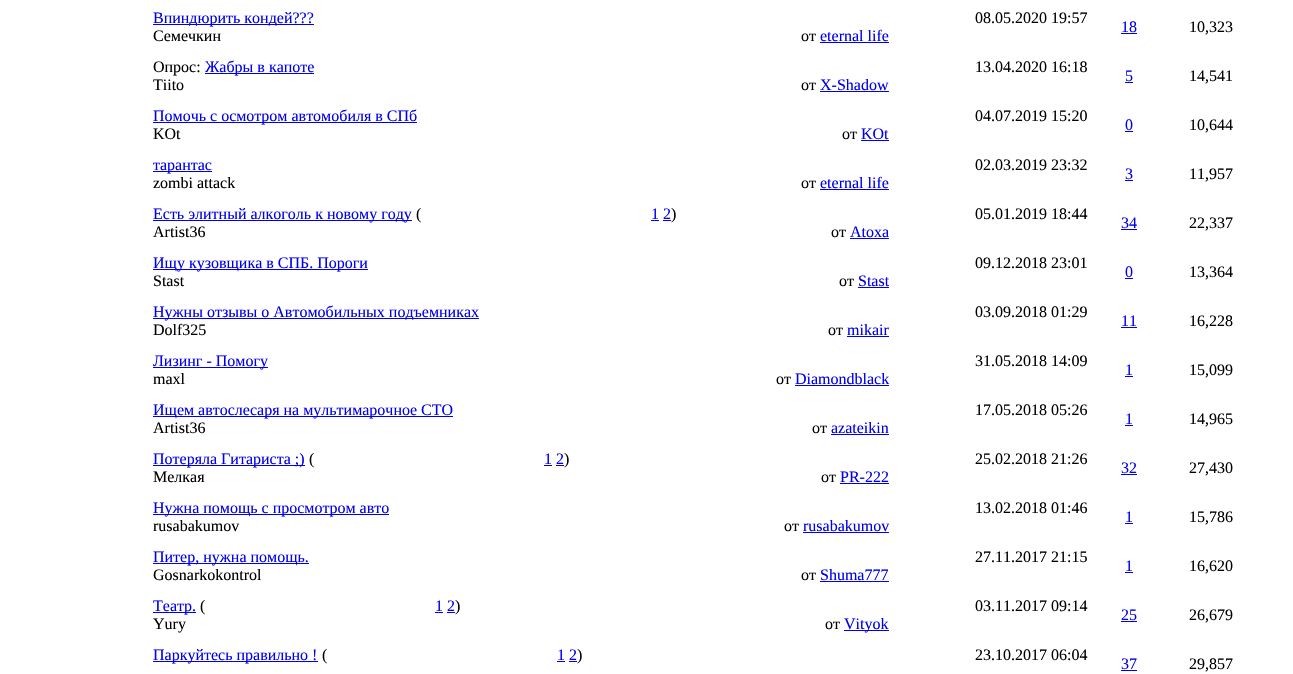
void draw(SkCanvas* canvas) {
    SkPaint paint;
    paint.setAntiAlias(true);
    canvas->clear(0xFFFFFFFF);
    paint.setColor(0xFF0000EE);
    canvas->drawRect(SkRect::MakeXYWH(153, 24, 161, 1), paint);
    SkFont font1(fontMgr->matchFamilyStyle("Liberation Serif", SkFontStyle::Normal()), 16);
    font1.setSubpixel(true);
    canvas->drawString("Впиндюрить кондей?\077?", 153, 23, font1, paint);
    paint.setColor(0xFF000000);
    canvas->drawString("Семечкин", 153, 41, font1, paint);
    canvas->drawString("08.05.2020 19:57", 975, 23, font1, paint);
    canvas->drawString("от", 801, 41, font1, paint);
    paint.setColor(0xFF0000EE);
    canvas->drawString("eternal life", 820, 41, font1, paint);
    canvas->drawRect(SkRect::MakeXYWH(820, 42, 69, 1), paint);
    canvas->drawString("18", 1121, 32, font1, paint);
    canvas->drawRect(SkRect::MakeXYWH(1121, 33, 16, 1), paint);
    paint.setColor(0xFF000000);
    canvas->drawString("10,323", 1189, 32, font1, paint);
    canvas->drawString("Опрос:", 153, 72, font1, paint);
    paint.setColor(0xFF0000EE);
    canvas->drawRect(SkRect::MakeXYWH(205, 73, 109, 1), paint);
    canvas->drawString("Жабры в капоте", 205, 72, font1, paint);
    paint.setColor(0xFF000000);
    canvas->drawString("Tiito", 153, 90, font1, paint);
    canvas->drawString("13.04.2020 16:18", 975, 72, font1, paint);
    canvas->drawString("от", 801, 90, font1, paint);
    paint.setColor(0xFF0000EE);
    canvas->drawString("X-Shadow", 820, 90, font1, paint);
    canvas->drawRect(SkRect::MakeXYWH(820, 91, 69, 1), paint);
    canvas->drawString("5", 1125, 81, font1, paint);
    canvas->drawRect(SkRect::MakeXYWH(1125, 82, 8, 1), paint);
    paint.setColor(0xFF000000);
    canvas->drawString("14,541", 1189, 81, font1, paint);
    paint.setColor(0xFF0000EE);
    canvas->drawRect(SkRect::MakeXYWH(153, 122, 264, 1), paint);
    canvas->drawString("Помочь с осмотром автомобиля в СПб", 153, 121, font1, paint);
    paint.setColor(0xFF000000);
    canvas->drawString("KOt", 153, 139, font1, paint);
    canvas->drawString("04.07.2019 15:20", 975, 121, font1, paint);
    canvas->drawString("от", 842, 139, font1, paint);
    paint.setColor(0xFF0000EE);
    canvas->drawString("KOt", 861, 139, font1, paint);
    canvas->drawRect(SkRect::MakeXYWH(861, 140, 28, 1), paint);
    canvas->drawString("0", 1125, 130, font1, paint);
    canvas->drawRect(SkRect::MakeXYWH(1125, 131, 8, 1), paint);
    paint.setColor(0xFF000000);
    canvas->drawString("10,644", 1189, 130, font1, paint);
    paint.setColor(0xFF0000EE);
    canvas->drawRect(SkRect::MakeXYWH(153, 171, 59, 1), paint);
    canvas->drawString("тарантас", 153, 170, font1, paint);
    paint.setColor(0xFF000000);
    canvas->drawString("zombi attack", 153, 188, font1, paint);
    canvas->drawString("02.03.2019 23:32", 975, 170, font1, paint);
    canvas->drawString("от", 801, 188, font1, paint);
    paint.setColor(0xFF0000EE);
    canvas->drawString("eternal life", 820, 188, font1, paint);
    canvas->drawRect(SkRect::MakeXYWH(820, 189, 69, 1), paint);
    canvas->drawString("3", 1125, 179, font1, paint);
    canvas->drawRect(SkRect::MakeXYWH(1125, 180, 8, 1), paint);
    paint.setColor(0xFF000000);
    canvas->drawString("11,957", 1189, 179, font1, paint);
    paint.setColor(0xFF0000EE);
    canvas->drawRect(SkRect::MakeXYWH(153, 220, 259, 1), paint);
    canvas->drawString("Есть элитный алкоголь к новому году", 153, 219, font1, paint);
    paint.setColor(0xFF000000);
    canvas->drawString("(", 416, 219, font1, paint);
    paint.setColor(0xFF0000EE);
    canvas->drawString("1 2", 651, 219, font1, paint);
    canvas->drawRect(SkRect::MakeXYWH(651, 220, 8, 1), paint);
    paint.setColor(0xFF000000);
    canvas->drawString(")", 671, 219, font1, paint);
    paint.setColor(0xFF0000EE);
    canvas->drawRect(SkRect::MakeXYWH(663, 220, 8, 1), paint);
    paint.setColor(0xFF000000);
    canvas->drawString("Artist36", 153, 237, font1, paint);
    canvas->drawString("05.01.2019 18:44", 975, 219, font1, paint);
    canvas->drawString("от", 831, 237, font1, paint);
    paint.setColor(0xFF0000EE);
    canvas->drawString("Atoxa", 850, 237, font1, paint);
    canvas->drawRect(SkRect::MakeXYWH(850, 238, 39, 1), paint);
    canvas->drawString("34", 1121, 228, font1, paint);
    canvas->drawRect(SkRect::MakeXYWH(1121, 229, 16, 1), paint);
    paint.setColor(0xFF000000);
    canvas->drawString("22,337", 1189, 228, font1, paint);
    paint.setColor(0xFF0000EE);
    canvas->drawRect(SkRect::MakeXYWH(153, 269, 215, 1), paint);
    canvas->drawString("Ищу кузовщика в СПБ. Пороги", 153, 268, font1, paint);
    paint.setColor(0xFF000000);
    canvas->drawString("Stast", 153, 286, font1, paint);
    canvas->drawString("09.12.2018 23:01", 975, 268, font1, paint);
    canvas->drawString("от", 839, 286, font1, paint);
    paint.setColor(0xFF0000EE);
    canvas->drawString("Stast", 858, 286, font1, paint);
    canvas->drawRect(SkRect::MakeXYWH(858, 287, 31, 1), paint);
    canvas->drawString("0", 1125, 277, font1, paint);
    canvas->drawRect(SkRect::MakeXYWH(1125, 278, 8, 1), paint);
    paint.setColor(0xFF000000);
    canvas->drawString("13,364", 1189, 277, font1, paint);
    paint.setColor(0xFF0000EE);
    canvas->drawRect(SkRect::MakeXYWH(153, 318, 326, 1), paint);
    canvas->drawString("Нужны отзывы о Автомобильных подъемниках", 153, 317, font1, paint);
    paint.setColor(0xFF000000);
    canvas->drawString("Dolf325", 153, 335, font1, paint);
    canvas->drawString("03.09.2018 01:29", 975, 317, font1, paint);
    canvas->drawString("от", 828, 335, font1, paint);
    paint.setColor(0xFF0000EE);
    canvas->drawString("mikair", 847, 335, font1, paint);
    canvas->drawRect(SkRect::MakeXYWH(847, 336, 42, 1), paint);
    canvas->drawString("11", 1121, 326, font1, paint);
    canvas->drawRect(SkRect::MakeXYWH(1121, 327, 16, 1), paint);
    paint.setColor(0xFF000000);
    canvas->drawString("16,228", 1189, 326, font1, paint);
    paint.setColor(0xFF0000EE);
    canvas->drawRect(SkRect::MakeXYWH(153, 367, 115, 1), paint);
    canvas->drawString("Лизинг - Помогу", 153, 366, font1, paint);
    paint.setColor(0xFF000000);
    canvas->drawString("maxl", 153, 384, font1, paint);
    canvas->drawString("31.05.2018 14:09", 975, 366, font1, paint);
    canvas->drawString("от", 776, 384, font1, paint);
    paint.setColor(0xFF0000EE);
    canvas->drawString("Diamondblack", 795, 384, font1, paint);
    canvas->drawRect(SkRect::MakeXYWH(795, 385, 94, 1), paint);
    canvas->drawString("1", 1125, 375, font1, paint);
    canvas->drawRect(SkRect::MakeXYWH(1125, 376, 8, 1), paint);
    paint.setColor(0xFF000000);
    canvas->drawString("15,099", 1189, 375, font1, paint);
    paint.setColor(0xFF0000EE);
    canvas->drawRect(SkRect::MakeXYWH(153, 416, 300, 1), paint);
    canvas->drawString("Ищем автослесаря на мультимарочное СТО", 153, 415, font1, paint);
    paint.setColor(0xFF000000);
    canvas->drawString("Artist36", 153, 433, font1, paint);
    canvas->drawString("17.05.2018 05:26", 975, 415, font1, paint);
    canvas->drawString("от", 812, 433, font1, paint);
    paint.setColor(0xFF0000EE);
    canvas->drawString("azateikin", 831, 433, font1, paint);
    canvas->drawRect(SkRect::MakeXYWH(831, 434, 58, 1), paint);
    canvas->drawString("1", 1125, 424, font1, paint);
    canvas->drawRect(SkRect::MakeXYWH(1125, 425, 8, 1), paint);
    paint.setColor(0xFF000000);
    canvas->drawString("14,965", 1189, 424, font1, paint);
    paint.setColor(0xFF0000EE);
    canvas->drawRect(SkRect::MakeXYWH(153, 465, 152, 1), paint);
    canvas->drawString("Потеряла Гитариста ;)", 153, 464, font1, paint);
    paint.setColor(0xFF000000);
    canvas->drawString("(", 309, 464, font1, paint);
    paint.setColor(0xFF0000EE);
    canvas->drawString("1 2", 544, 464, font1, paint);
    canvas->drawRect(SkRect::MakeXYWH(544, 465, 8, 1), paint);
    paint.setColor(0xFF000000);
    canvas->drawString(")", 564, 464, font1, paint);
    paint.setColor(0xFF0000EE);
    canvas->drawRect(SkRect::MakeXYWH(556, 465, 8, 1), paint);
    paint.setColor(0xFF000000);
    canvas->drawString("Мелкая", 153, 482, font1, paint);
    canvas->drawString("25.02.2018 21:26", 975, 464, font1, paint);
    canvas->drawString("от", 821, 482, font1, paint);
    paint.setColor(0xFF0000EE);
    canvas->drawString("PR-222", 840, 482, font1, paint);
    canvas->drawRect(SkRect::MakeXYWH(840, 483, 49, 1), paint);
    canvas->drawString("32", 1121, 473, font1, paint);
    canvas->drawRect(SkRect::MakeXYWH(1121, 474, 16, 1), paint);
    paint.setColor(0xFF000000);
    canvas->drawString("27,430", 1189, 473, font1, paint);
    paint.setColor(0xFF0000EE);
    canvas->drawRect(SkRect::MakeXYWH(153, 514, 236, 1), paint);
    canvas->drawString("Нужна помощь с просмотром авто", 153, 513, font1, paint);
    paint.setColor(0xFF000000);
    canvas->drawString("rusabakumov", 153, 531, font1, paint);
    canvas->drawString("13.02.2018 01:46", 975, 513, font1, paint);
    canvas->drawString("от", 784, 531, font1, paint);
    paint.setColor(0xFF0000EE);
    canvas->drawString("rusabakumov", 803, 531, font1, paint);
    canvas->drawRect(SkRect::MakeXYWH(803, 532, 86, 1), paint);
    canvas->drawString("1", 1125, 522, font1, paint);
    canvas->drawRect(SkRect::MakeXYWH(1125, 523, 8, 1), paint);
    paint.setColor(0xFF000000);
    canvas->drawString("15,786", 1189, 522, font1, paint);
    paint.setColor(0xFF0000EE);
    canvas->drawRect(SkRect::MakeXYWH(153, 563, 156, 1), paint);
    canvas->drawString("Питер, нужна помощь.", 153, 562, font1, paint);
    paint.setColor(0xFF000000);
    canvas->drawString("Gosnarkokontrol", 153, 580, font1, paint);
    canvas->drawString("27.11.2017 21:15", 975, 562, font1, paint);
    canvas->drawString("от", 801, 580, font1, paint);
    paint.setColor(0xFF0000EE);
    canvas->drawString("Shuma777", 820, 580, font1, paint);
    canvas->drawRect(SkRect::MakeXYWH(820, 581, 69, 1), paint);
    canvas->drawString("1", 1125, 571, font1, paint);
    canvas->drawRect(SkRect::MakeXYWH(1125, 572, 8, 1), paint);
    paint.setColor(0xFF000000);
    canvas->drawString("16,620", 1189, 571, font1, paint);
    paint.setColor(0xFF0000EE);
    canvas->drawRect(SkRect::MakeXYWH(153, 612, 43, 1), paint);
    canvas->drawString("Театр.", 153, 611, font1, paint);
    paint.setColor(0xFF000000);
    canvas->drawString("(", 200, 611, font1, paint);
    paint.setColor(0xFF0000EE);
    canvas->drawString("1 2", 435, 611, font1, paint);
    canvas->drawRect(SkRect::MakeXYWH(435, 612, 8, 1), paint);
    paint.setColor(0xFF000000);
    canvas->drawString(")", 455, 611, font1, paint);
    paint.setColor(0xFF0000EE);
    canvas->drawRect(SkRect::MakeXYWH(447, 612, 8, 1), paint);
    paint.setColor(0xFF000000);
    canvas->drawString("Yury", 153, 629, font1, paint);
    canvas->drawString("03.11.2017 09:14", 975, 611, font1, paint);
    canvas->drawString("от", 825, 629, font1, paint);
    paint.setColor(0xFF0000EE);
    canvas->drawRect(SkRect::MakeXYWH(844, 630, 45, 1), paint);
    canvas->drawString("Vityok", 844, 629, font1, paint);
    canvas->drawString("25", 1121, 620, font1, paint);
    canvas->drawRect(SkRect::MakeXYWH(1121, 621, 16, 1), paint);
    paint.setColor(0xFF000000);
    canvas->drawString("26,679", 1189, 620, font1, paint);
    paint.setColor(0xFF0000EE);
    canvas->drawRect(SkRect::MakeXYWH(153, 661, 165, 1), paint);
    canvas->drawString("Паркуйтесь правильно !", 153, 660, font1, paint);
    paint.setColor(0xFF000000);
    canvas->drawString("(", 322, 660, font1, paint);
    paint.setColor(0xFF0000EE);
    canvas->drawString("1 2", 557, 660, font1, paint);
    canvas->drawRect(SkRect::MakeXYWH(557, 661, 8, 1), paint);
    paint.setColor(0xFF000000);
    canvas->drawString(")", 577, 660, font1, paint);
    paint.setColor(0xFF0000EE);
    canvas->drawRect(SkRect::MakeXYWH(569, 661, 8, 1), paint);
    paint.setColor(0xFF000000);
    canvas->drawString("23.10.2017 06:04", 975, 660, font1, paint);
    paint.setColor(0xFF0000EE);
    canvas->drawString("37", 1121, 669, font1, paint);
    canvas->drawRect(SkRect::MakeXYWH(1121, 670, 16, 1), paint);
    paint.setColor(0xFF000000);
    canvas->drawString("29,857", 1189, 669, font1, paint);
}
